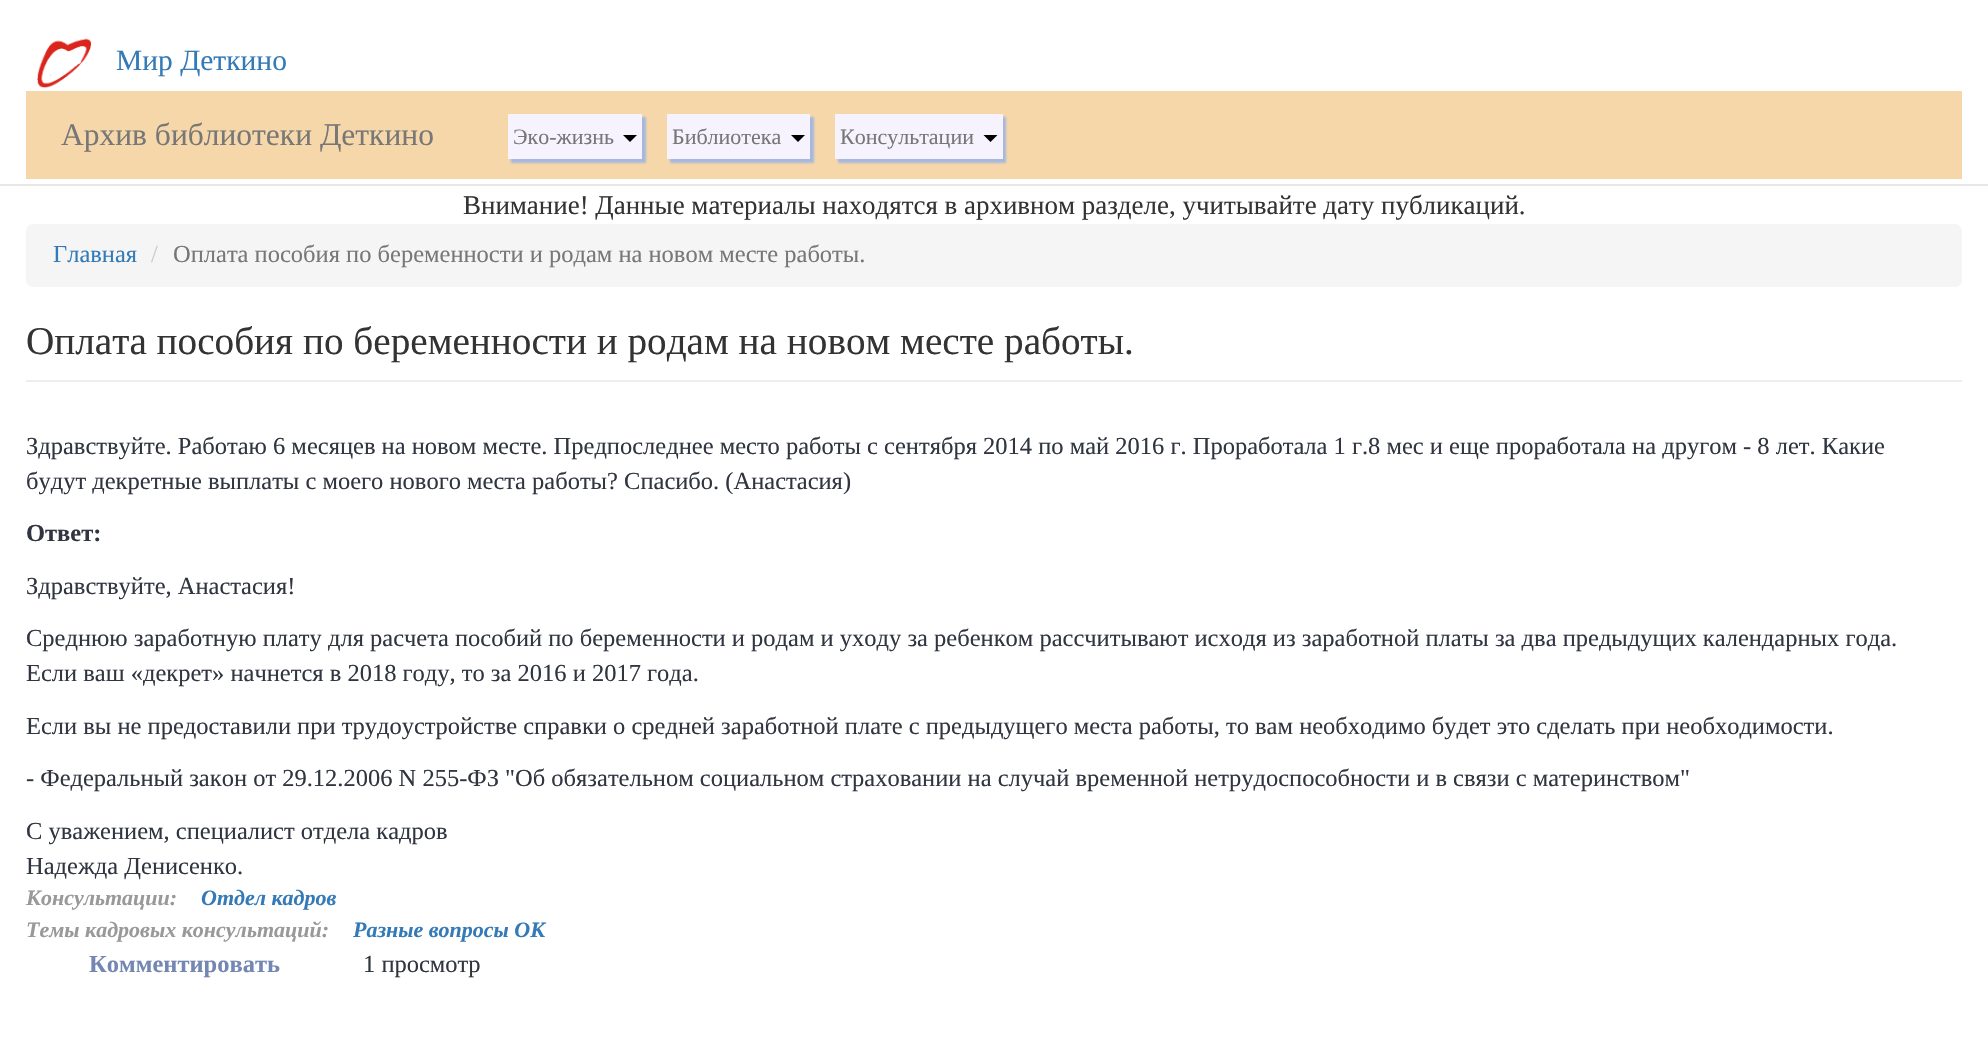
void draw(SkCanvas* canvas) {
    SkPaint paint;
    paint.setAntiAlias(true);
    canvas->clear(0xFFFFFFFF);
    paint.setColor(0xFFE7E7E7);
    canvas->drawRect(SkRect::MakeXYWH(0, 184, 1988, 2), paint);
    canvas->drawImageRect(SkImages::DeferredFromEncodedData(SkData::MakeFromFileName("img1.png")), SkRect::MakeXYWH(37, 38, 54, 50), SkSamplingOptions());
    SkFont font1(fontMgr->matchFamilyStyle("Liberation Serif", SkFontStyle::Normal()), 29.5f);
    font1.setSubpixel(true);
    paint.setColor(0xFF337AB7);
    canvas->drawString("Мир Деткино", 116, 70, font1, paint);
    paint.setColor(0xFFF6D7A9);
    canvas->drawRect(SkRect::MakeXYWH(26, 91, 1936, 88), paint);
    SkFont font2(fontMgr->matchFamilyStyle("Liberation Serif", SkFontStyle::Normal()), 31.5f);
    font2.setSubpixel(true);
    paint.setColor(0xFF777777);
    canvas->drawString("Архив библиотеки Деткино", 61, 145, font2, paint);
    paint.setColor(0xFFA6B8DE);
    paint.setMaskFilter(SkMaskFilter::MakeBlur(kNormal_SkBlurStyle, 1));
    canvas->drawRect(SkRect::MakeXYWH(511, 117, 135, 46), paint);
    paint.setMaskFilter(nullptr);
    paint.setColor(0xFFF6F3FF);
    canvas->drawRect(SkRect::MakeXYWH(508, 114, 134, 45), paint);
    SkFont font3(fontMgr->matchFamilyStyle("Liberation Serif", SkFontStyle::Normal()), 22);
    font3.setSubpixel(true);
    paint.setColor(0xFF777777);
    canvas->drawString("Эко-жизнь", 513, 144, font3, paint);
    paint.setColor(0xFF000000);
    canvas->drawPath(SkPathBuilder().moveTo(623, 135).lineTo(637, 135).lineTo(630, 142).close().detach(), paint);
    paint.setColor(0xFFA6B8DE);
    paint.setMaskFilter(SkMaskFilter::MakeBlur(kNormal_SkBlurStyle, 1));
    canvas->drawRect(SkRect::MakeXYWH(670, 117, 144, 46), paint);
    paint.setMaskFilter(nullptr);
    paint.setColor(0xFFF6F3FF);
    canvas->drawRect(SkRect::MakeXYWH(667, 114, 143, 45), paint);
    paint.setColor(0xFF777777);
    canvas->drawString("Библиотека", 672, 144, font3, paint);
    paint.setColor(0xFF000000);
    canvas->drawPath(SkPathBuilder().moveTo(791, 135).lineTo(805, 135).lineTo(798, 142).close().detach(), paint);
    paint.setColor(0xFFA6B8DE);
    paint.setMaskFilter(SkMaskFilter::MakeBlur(kNormal_SkBlurStyle, 1));
    canvas->drawRect(SkRect::MakeXYWH(838, 117, 168, 46), paint);
    paint.setMaskFilter(nullptr);
    paint.setColor(0xFFF6F3FF);
    canvas->drawRect(SkRect::MakeXYWH(835, 114, 168, 45), paint);
    paint.setColor(0xFF777777);
    canvas->drawString("Консультации", 840, 144, font3, paint);
    paint.setColor(0xFF000000);
    canvas->drawPath(SkPathBuilder().moveTo(983.5f, 135).lineTo(997.5f, 135).lineTo(990.5f, 142).close().detach(), paint);
    SkFont font4(fontMgr->matchFamilyStyle("Liberation Serif", SkFontStyle::Normal()), 26.95f);
    font4.setSubpixel(true);
    paint.setColor(0xFF333333);
    canvas->drawString("Внимание! Данные материалы находятся в архивном разделе, учитывайте дату публикаций.", 463, 214, font4, paint);
    paint.setColor(0xFFF5F5F5);
    canvas->drawRoundRect(SkRect::MakeXYWH(26, 224, 1936, 63), 7, 7, paint);
    SkFont font5(fontMgr->matchFamilyStyle("Liberation Serif", SkFontStyle::Normal()), 24.5f);
    font5.setSubpixel(true);
    paint.setColor(0xFF337AB7);
    canvas->drawString("Главная", 53, 262, font5, paint);
    paint.setColor(0xFFCCCCCC);
    canvas->drawString("/", 151, 262, font5, paint);
    paint.setColor(0xFF777777);
    canvas->drawString("Оплата пособия по беременности и родам на новом месте работы.", 173, 262, font5, paint);
    paint.setColor(0xFFEEEEEE);
    canvas->drawRect(SkRect::MakeXYWH(26, 380, 1936, 2), paint);
    SkFont font6(fontMgr->matchFamilyStyle("Liberation Serif", SkFontStyle::Normal()), 39.2f);
    font6.setSubpixel(true);
    paint.setColor(0xFF333333);
    canvas->drawString("Оплата пособия по беременности и родам на новом месте работы.", 26, 354, font6, paint);
    paint.setColor(0xFF303540);
    canvas->drawString("Здравствуйте. Работаю 6 месяцев на новом месте. Предпоследнее место работы с сентября 2014 по май 2016 г. Проработала 1 г.8 мес и еще проработала на другом - 8 лет. Какие", 26, 454, font5, paint);
    canvas->drawString("будут декретные выплаты с моего нового места работы? Спасибо. (Анастасия)", 26, 489, font5, paint);
    SkFont font7(fontMgr->matchFamilyStyle("Liberation Serif", SkFontStyle::Bold()), 24.5f);
    font7.setSubpixel(true);
    canvas->drawString("Ответ:", 26, 541, font7, paint);
    canvas->drawString("Здравствуйте, Анастасия!", 26, 594, font5, paint);
    canvas->drawString("Среднюю заработную плату для расчета пособий по беременности и родам и уходу за ребенком рассчитывают исходя из заработной платы за два предыдущих календарных года.", 26, 646, font5, paint);
    canvas->drawString("Если ваш «декрет» начнется в 2018 году, то за 2016 и 2017 года.", 26, 681, font5, paint);
    canvas->drawString("Если вы не предоставили при трудоустройстве справки о средней заработной плате с предыдущего места работы, то вам необходимо будет это сделать при необходимости.", 26, 734, font5, paint);
    canvas->drawString("- Федеральный закон от 29.12.2006 N 255-ФЗ \"Об обязательном социальном страховании на случай временной нетрудоспособности и в связи с материнством\"", 26, 786, font5, paint);
    canvas->drawString("С уважением, специалист отдела кадров", 26, 839, font5, paint);
    canvas->drawString("Надежда Денисенко.", 26, 874, font5, paint);
    SkFont font8(fontMgr->matchFamilyStyle("Liberation Serif", SkFontStyle::BoldItalic()), 22);
    font8.setSubpixel(true);
    paint.setColor(0xFF999999);
    canvas->drawString("Консультации:", 26, 905, font8, paint);
    paint.setColor(0xFF337AB7);
    canvas->drawString("Отдел кадров", 201, 905, font8, paint);
    paint.setColor(0xFF999999);
    canvas->drawString("Темы кадровых консультаций:", 26, 937, font8, paint);
    paint.setColor(0xFF337AB7);
    canvas->drawString("Разные вопросы ОК", 353, 937, font8, paint);
    paint.setColor(0xFF7487B2);
    canvas->drawString("Комментировать", 89, 972, font7, paint);
    paint.setColor(0xFF303540);
    canvas->drawString("1 просмотр", 363, 972, font5, paint);
}
